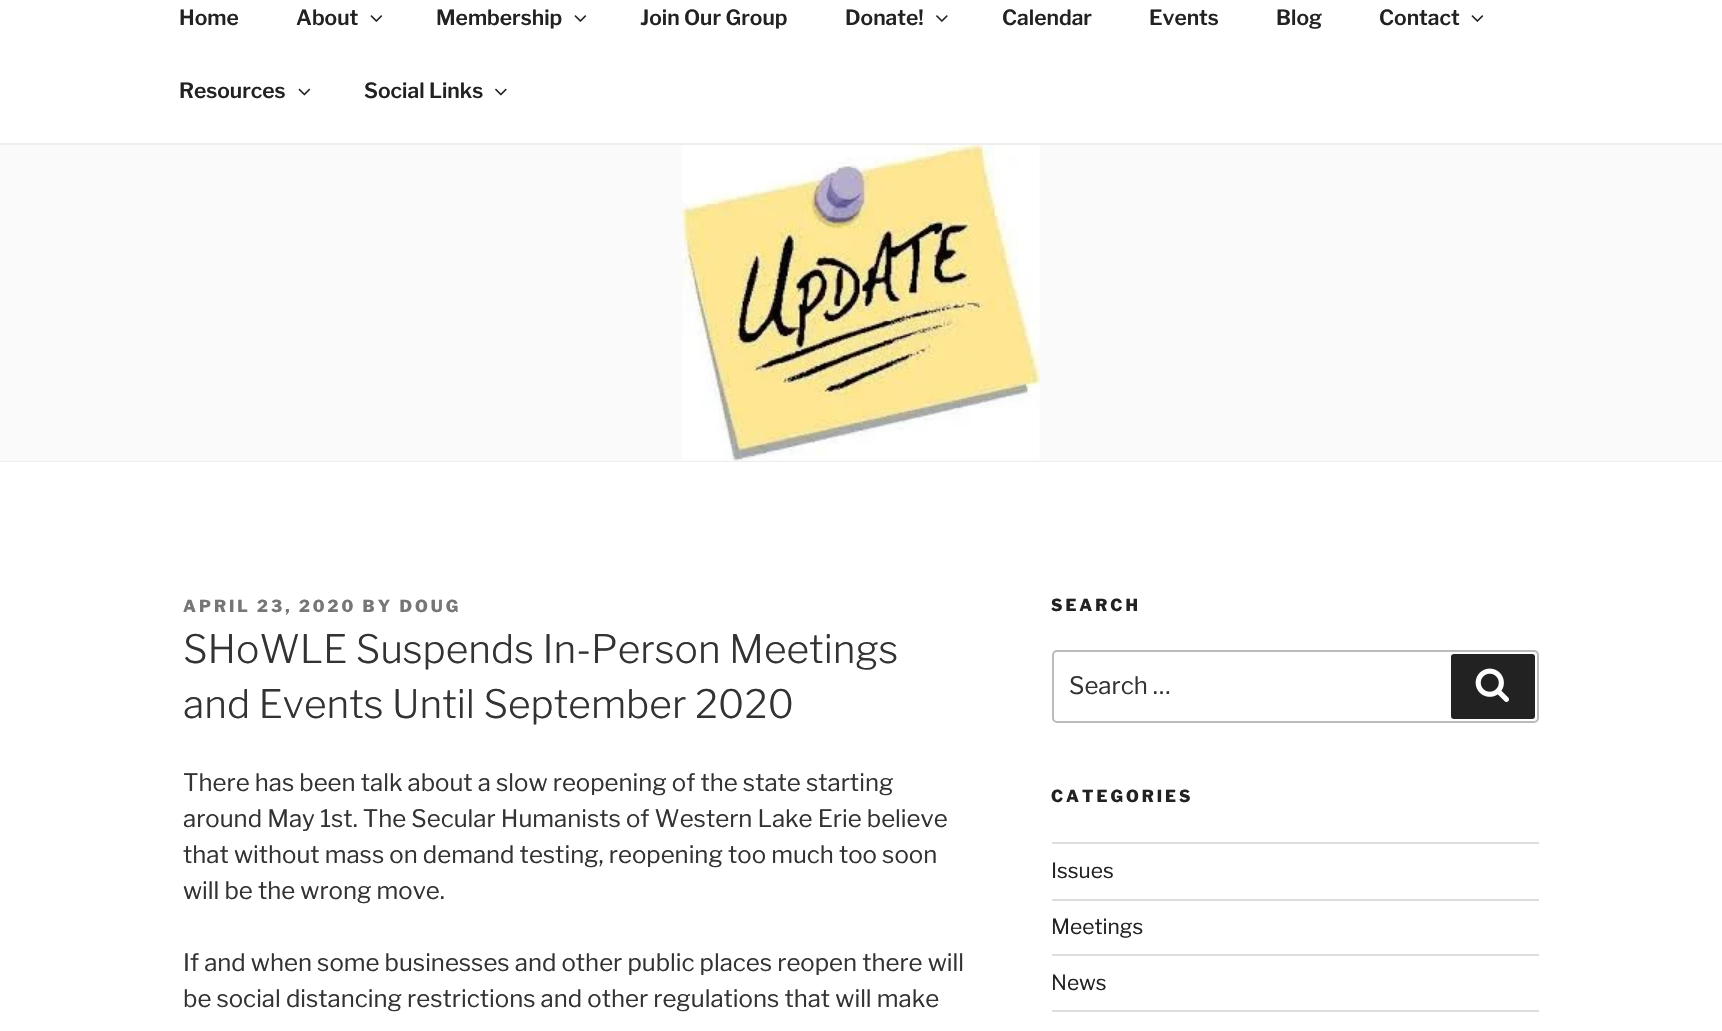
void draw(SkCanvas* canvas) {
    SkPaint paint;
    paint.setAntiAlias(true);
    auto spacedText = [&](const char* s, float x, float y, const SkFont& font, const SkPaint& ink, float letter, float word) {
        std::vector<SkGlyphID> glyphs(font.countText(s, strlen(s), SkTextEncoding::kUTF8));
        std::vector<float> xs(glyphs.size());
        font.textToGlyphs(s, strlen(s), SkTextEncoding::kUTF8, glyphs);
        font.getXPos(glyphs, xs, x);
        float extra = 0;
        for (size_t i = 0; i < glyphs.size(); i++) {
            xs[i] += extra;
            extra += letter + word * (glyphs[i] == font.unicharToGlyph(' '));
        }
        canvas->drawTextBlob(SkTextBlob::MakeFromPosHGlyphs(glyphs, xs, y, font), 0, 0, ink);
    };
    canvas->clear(0xFFFAFAFA);
    paint.setColor(0xFFFFFFFF);
    canvas->drawRect(SkRect::MakeXYWH(0, 0, 1722, 143), paint);
    paint.setColor(0xFFEEEEEE);
    canvas->drawRect(SkRect::MakeXYWH(0, 143, 1722, 2), paint);
    SkFont font1(fontMgr->matchFamilyStyle("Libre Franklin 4", SkFontStyle(100, SkFontStyle::kNormal_Width, SkFontStyle::kUpright_Slant)), 21);
    font1.setSubpixel(true);
    paint.setColor(0xFF222222);
    canvas->drawString("Home", 179, 25, font1, paint);
    canvas->drawString("About", 296, 25, font1, paint);
    canvas->drawImageRect(SkImages::DeferredFromEncodedData(SkData::MakeFromFileName("img1.png")), SkRect::MakeXYWH(370, 15, 13, 7), SkSamplingOptions());
    canvas->drawString("Membership", 436, 25, font1, paint);
    canvas->drawImageRect(SkImages::DeferredFromEncodedData(SkData::MakeFromFileName("img1.png")), SkRect::MakeXYWH(574, 15, 13, 7), SkSamplingOptions());
    canvas->drawString("Join Our Group", 640, 25, font1, paint);
    canvas->drawString("Donate!", 845, 25, font1, paint);
    canvas->drawImageRect(SkImages::DeferredFromEncodedData(SkData::MakeFromFileName("img2.png")), SkRect::MakeXYWH(936, 15, 12, 7), SkSamplingOptions());
    canvas->drawString("Calendar", 1002, 25, font1, paint);
    canvas->drawString("Events", 1149, 25, font1, paint);
    canvas->drawString("Blog", 1276, 25, font1, paint);
    canvas->drawString("Contact", 1379, 25, font1, paint);
    canvas->drawImageRect(SkImages::DeferredFromEncodedData(SkData::MakeFromFileName("img1.png")), SkRect::MakeXYWH(1471, 15, 13, 7), SkSamplingOptions());
    canvas->drawString("Resources", 179, 98, font1, paint);
    canvas->drawImageRect(SkImages::DeferredFromEncodedData(SkData::MakeFromFileName("img3.png")), SkRect::MakeXYWH(298, 88, 13, 8), SkSamplingOptions());
    canvas->drawString("Social Links", 364, 98, font1, paint);
    canvas->drawImageRect(SkImages::DeferredFromEncodedData(SkData::MakeFromFileName("img4.png")), SkRect::MakeXYWH(495, 88, 12, 8), SkSamplingOptions());
    paint.setColor(0xFFEEEEEE);
    canvas->drawRect(SkRect::MakeXYWH(0, 461, 1722, 1), paint);
    canvas->drawImageRect(SkImages::DeferredFromEncodedData(SkData::MakeFromFileName("img5.png")), SkRect::MakeXYWH(682, 145, 358, 316), SkSamplingOptions());
    paint.setColor(0xFFFFFFFF);
    canvas->drawRect(SkRect::MakeXYWH(0, 462, 1722, 569), paint);
    SkFont font2(fontMgr->matchFamilyStyle("Libre Franklin", SkFontStyle(100, SkFontStyle::kNormal_Width, SkFontStyle::kUpright_Slant)), 16.5f);
    font2.setSubpixel(true);
    paint.setColor(0xFF767676);
    spacedText("APRIL 23, 2020 BY DOUG", 183, 612, font2, paint, 3, 0);
    SkFont font3(fontMgr->matchFamilyStyle("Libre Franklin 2", SkFontStyle(100, SkFontStyle::kNormal_Width, SkFontStyle::kUpright_Slant)), 39);
    font3.setSubpixel(true);
    paint.setColor(0xFF333333);
    canvas->drawString("SHoWLE Suspends In-Person Meetings", 183, 663, font3, paint);
    canvas->drawString("and Events Until September 2020", 183, 718, font3, paint);
    SkFont font4(fontMgr->matchFamilyStyle("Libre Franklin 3", SkFontStyle(100, SkFontStyle::kNormal_Width, SkFontStyle::kUpright_Slant)), 24);
    font4.setSubpixel(true);
    canvas->drawString("There has been talk about a slow reopening of the state starting", 183, 791, font4, paint);
    canvas->drawString("around May 1st. The Secular Humanists of Western Lake Erie believe", 183, 827, font4, paint);
    canvas->drawString("that without mass on demand testing, reopening too much too soon", 183, 863, font4, paint);
    canvas->drawString("will be the wrong move.", 183, 899, font4, paint);
    canvas->drawString("If and when some businesses and other public places reopen there will", 183, 971, font4, paint);
    canvas->drawString("be social distancing restrictions and other regulations that will make", 183, 1007, font4, paint);
    paint.setColor(0xFF222222);
    spacedText("SEARCH", 1051, 611, font2, paint, 3, 0);
    paint.setStyle(SkPaint::kStroke_Style);
    paint.setStrokeWidth(2);
    paint.setColor(0xFFBBBBBB);
    canvas->drawRoundRect(SkRect::MakeXYWH(1053, 651, 485, 71), 4, 4, paint);
    paint.setStyle(SkPaint::kFill_Style);
    paint.setColor(0xFF333333);
    canvas->drawString("Search …", 1069, 694, font4, paint);
    paint.setColor(0xFF222222);
    canvas->drawRoundRect(SkRect::MakeXYWH(1451, 654, 84, 65), 3, 3, paint);
    canvas->drawImageRect(SkImages::DeferredFromEncodedData(SkData::MakeFromFileName("img6.png")), SkRect::MakeXYWH(1475, 668, 34, 34), SkSamplingOptions());
    spacedText("CATEGORIES", 1051, 802, font2, paint, 3, 0);
    paint.setColor(0xFFDDDDDD);
    canvas->drawRect(SkRect::MakeXYWH(1052, 842, 487, 2), paint);
    canvas->drawRect(SkRect::MakeXYWH(1052, 899, 487, 2), paint);
    SkFont font5(fontMgr->matchFamilyStyle("Libre Franklin 3", SkFontStyle(100, SkFontStyle::kNormal_Width, SkFontStyle::kUpright_Slant)), 21);
    font5.setSubpixel(true);
    paint.setColor(0xFF222222);
    canvas->drawString("Issues", 1051, 878, font5, paint);
    paint.setColor(0xFFDDDDDD);
    canvas->drawRect(SkRect::MakeXYWH(1052, 954, 487, 2), paint);
    paint.setColor(0xFF222222);
    canvas->drawString("Meetings", 1051, 934, font5, paint);
    paint.setColor(0xFFDDDDDD);
    canvas->drawRect(SkRect::MakeXYWH(1052, 1010, 487, 2), paint);
    paint.setColor(0xFF222222);
    canvas->drawString("News", 1051, 990, font5, paint);
}
